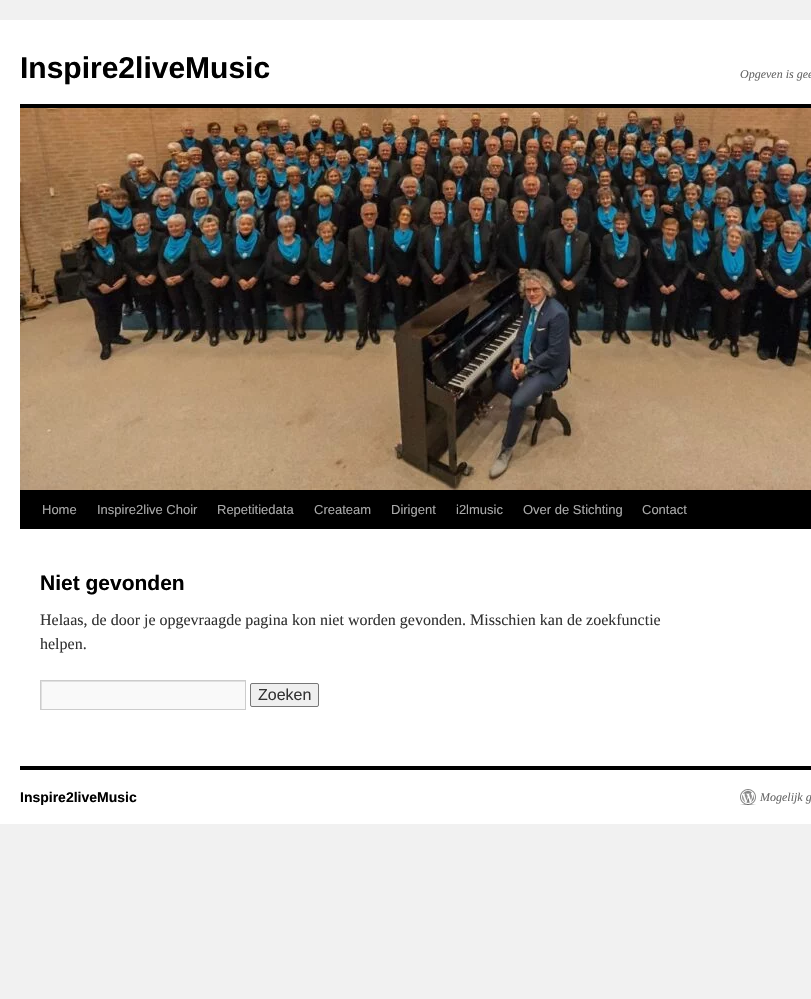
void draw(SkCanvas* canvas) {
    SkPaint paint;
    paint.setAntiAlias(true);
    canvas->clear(0xFFF1F1F1);
    paint.setColor(0xFFFFFFFF);
    canvas->drawRect(SkRect::MakeXYWH(0, 20, 811, 804), paint);
    SkFont font1(fontMgr->matchFamilyStyle("Liberation Sans", SkFontStyle::Bold()), 30);
    font1.setSubpixel(true);
    paint.setColor(0xFF000000);
    canvas->drawString("Inspire2liveMusic", 20, 78, font1, paint);
    SkFont font2(fontMgr->matchFamilyStyle("Liberation Serif", SkFontStyle::Italic()), 12);
    font2.setSubpixel(true);
    paint.setColor(0xFF666666);
    canvas->drawString("Opgeven is gee", 740, 78, font2, paint);
    paint.setColor(0xFF000000);
    canvas->drawRect(SkRect::MakeXYWH(20, 104, 791, 4), paint);
    canvas->drawRect(SkRect::MakeXYWH(20, 490, 791, 39), paint);
    canvas->drawImageRect(SkImages::DeferredFromEncodedData(SkData::MakeFromFileName("img1.png")), SkRect::MakeXYWH(20, 108, 791, 382), SkSamplingOptions());
    SkFont font3(fontMgr->matchFamilyStyle("Liberation Sans", SkFontStyle::Normal()), 13);
    font3.setSubpixel(true);
    paint.setColor(0xFFAAAAAA);
    canvas->drawString("Home", 42, 514, font3, paint);
    canvas->drawString("Inspire2live Choir", 97, 514, font3, paint);
    canvas->drawString("Repetitiedata", 217, 514, font3, paint);
    canvas->drawString("Createam", 314, 514, font3, paint);
    canvas->drawString("Dirigent", 391, 514, font3, paint);
    canvas->drawString("i2lmusic", 456, 514, font3, paint);
    canvas->drawString("Over de Stichting", 523, 514, font3, paint);
    canvas->drawString("Contact", 642, 514, font3, paint);
    SkFont font4(fontMgr->matchFamilyStyle("Liberation Sans", SkFontStyle::Bold()), 21);
    font4.setSubpixel(true);
    paint.setColor(0xFF000000);
    canvas->drawString("Niet gevonden", 40, 590, font4, paint);
    SkFont font5(fontMgr->matchFamilyStyle("Liberation Serif", SkFontStyle::Normal()), 16);
    font5.setSubpixel(true);
    paint.setColor(0xFF333333);
    canvas->drawString("Helaas, de door je opgevraagde pagina kon niet worden gevonden. Misschien kan de zoekfunctie", 40, 625, font5, paint);
    canvas->drawString("helpen.", 40, 649, font5, paint);
    paint.setColor(0xFFF9F9F9);
    canvas->drawRect(SkRect::MakeXYWH(42, 682, 203, 27), paint);
    canvas->save();
    canvas->clipRect(SkRect::MakeXYWH(41, 681, 204, 28));
    paint.setColor(0xFFE0E0E0);
    canvas->drawPath(SkPathBuilder(SkPathFillType::kEvenOdd).moveTo(-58, 582).lineTo(344, 582).lineTo(344, 808).lineTo(-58, 808).close().moveTo(42, 682).lineTo(246, 682).lineTo(246, 710).lineTo(42, 710).close().detach(), paint);
    canvas->restore();
    paint.setStyle(SkPaint::kStroke_Style);
    paint.setStrokeWidth(1);
    paint.setColor(0xFFCCCCCC);
    canvas->drawRect(SkRect::MakeXYWH(40.5f, 680.5f, 205, 29), paint);
    paint.setStyle(SkPaint::kFill_Style);
    paint.setColor(0xFFEFEFEF);
    canvas->drawRoundRect(SkRect::MakeXYWH(250.5f, 683.5f, 68, 23), 1.5f, 1.5f, paint);
    paint.setStyle(SkPaint::kStroke_Style);
    paint.setColor(0xFF767676);
    canvas->drawRoundRect(SkRect::MakeXYWH(250.5f, 683.5f, 68, 23), 1.5f, 1.5f, paint);
    SkFont font6(fontMgr->matchFamilyStyle("Liberation Sans", SkFontStyle::Normal()), 16);
    font6.setSubpixel(true);
    paint.setStyle(SkPaint::kFill_Style);
    paint.setColor(0xFF333333);
    canvas->drawString("Zoeken", 258, 700, font6, paint);
    paint.setColor(0xFF000000);
    canvas->drawRect(SkRect::MakeXYWH(20, 766, 791, 4), paint);
    SkFont font7(fontMgr->matchFamilyStyle("Liberation Sans", SkFontStyle::Bold()), 14);
    font7.setSubpixel(true);
    canvas->drawString("Inspire2liveMusic", 20, 802, font7, paint);
    canvas->drawImageRect(SkImages::DeferredFromEncodedData(SkData::MakeFromFileName("img2.png")), SkRect::MakeXYWH(740, 789, 16, 16), SkSamplingOptions());
    paint.setColor(0xFF666666);
    canvas->drawString("Mogelijk g", 760, 801, font2, paint);
}
